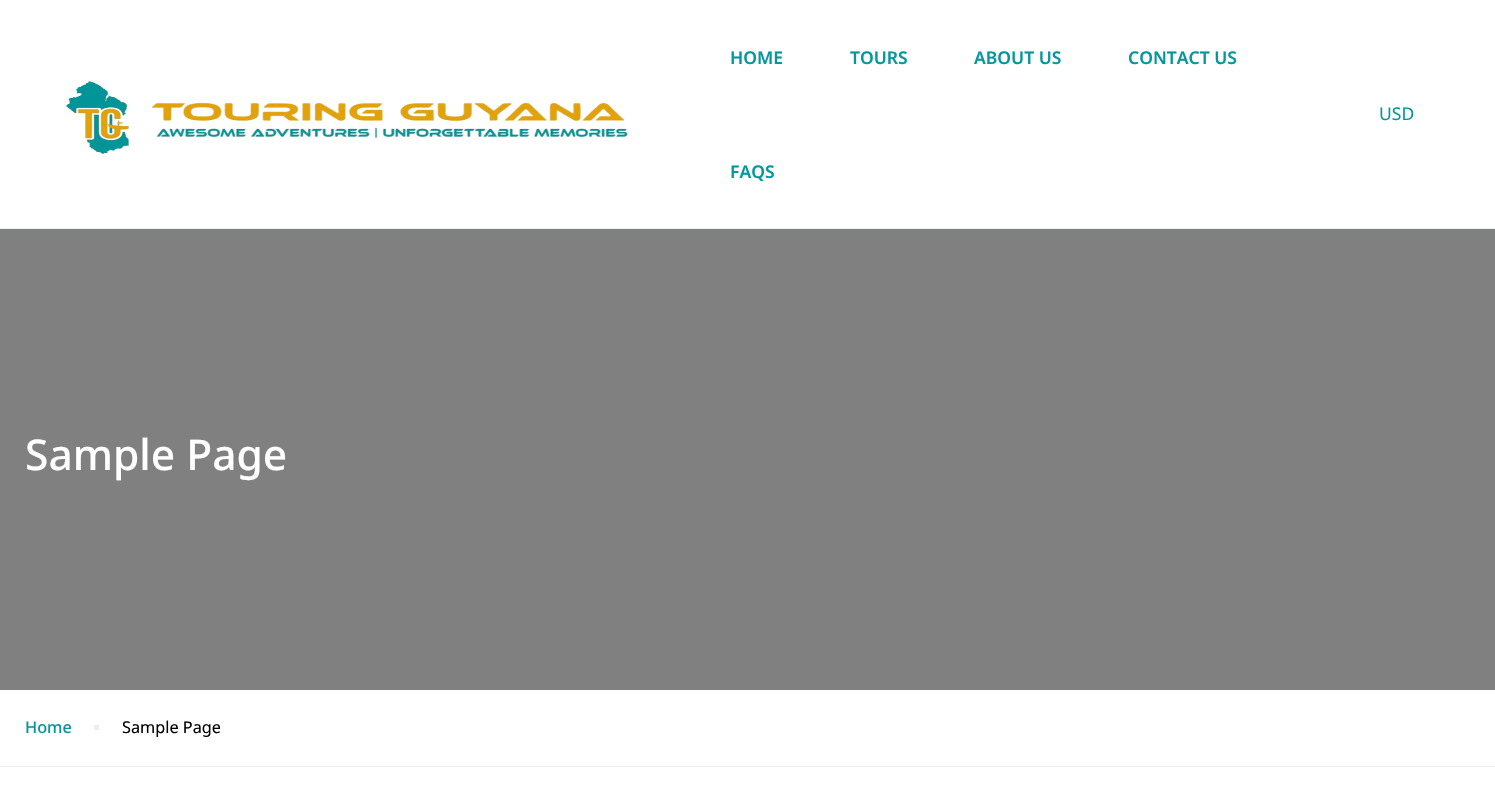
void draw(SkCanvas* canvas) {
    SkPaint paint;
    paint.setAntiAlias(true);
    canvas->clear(0xFFFFFFFF);
    paint.setColor(0xFFEAEEF3);
    canvas->drawRect(SkRect::MakeXYWH(0, 228, 1495, 1), paint);
    canvas->drawImageRect(SkImages::DeferredFromEncodedData(SkData::MakeFromFileName("img1.png")), SkRect::MakeXYWH(66, 81, 562, 73), SkSamplingOptions());
    SkFont font1(fontMgr->matchFamilyStyle("Noto Sans", SkFontStyle(600, SkFontStyle::kNormal_Width, SkFontStyle::kUpright_Slant)), 17.5f);
    font1.setSubpixel(true);
    paint.setColor(0xFF03989E);
    canvas->drawString("HOME", 730, 64, font1, paint);
    canvas->drawString("TOURS", 850, 64, font1, paint);
    canvas->drawString("ABOUT US", 974, 64, font1, paint);
    canvas->drawString("CONTACT US", 1128, 64, font1, paint);
    canvas->drawString("FAQS", 730, 178, font1, paint);
    SkFont font2(fontMgr->matchFamilyStyle("Noto Sans", SkFontStyle::Normal()), 17.5f);
    font2.setSubpixel(true);
    canvas->drawString("USD", 1379, 120, font2, paint);
    paint.setColor(0xFF808080);
    canvas->drawRect(SkRect::MakeXYWH(0, 229, 1495, 461), paint);
    SkFont font3(fontMgr->matchFamilyStyle("Noto Sans", SkFontStyle(500, SkFontStyle::kNormal_Width, SkFontStyle::kUpright_Slant)), 42.5f);
    font3.setSubpixel(true);
    paint.setColor(0xFFFFFFFF);
    canvas->drawString("Sample Page", 25, 470, font3, paint);
    paint.setColor(0xFFEAEEF3);
    canvas->drawRect(SkRect::MakeXYWH(0, 766, 1495, 1), paint);
    SkFont font4(fontMgr->matchFamilyStyle("Noto Sans", SkFontStyle(500, SkFontStyle::kNormal_Width, SkFontStyle::kUpright_Slant)), 16.25f);
    font4.setSubpixel(true);
    paint.setColor(0xFF03989E);
    canvas->drawString("Home", 25, 733, font4, paint);
    paint.setColor(0xFFEAEEF3);
    canvas->drawRect(SkRect::MakeXYWH(94, 725, 5, 5), paint);
    SkFont font5(fontMgr->matchFamilyStyle("Noto Sans", SkFontStyle::Normal()), 16.25f);
    font5.setSubpixel(true);
    paint.setColor(0xFF000000);
    canvas->drawString("Sample Page", 122, 733, font5, paint);
}
